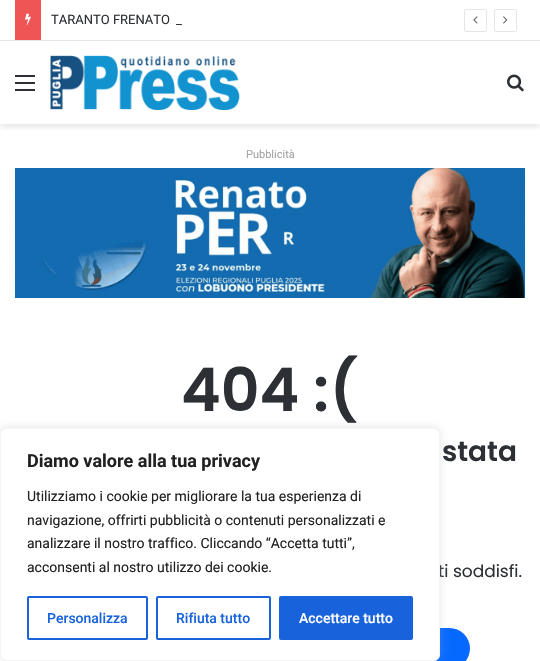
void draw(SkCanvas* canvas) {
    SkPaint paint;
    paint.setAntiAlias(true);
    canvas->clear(0xFFFFFFFF);
    canvas->save();
    canvas->clipRect(SkRect::MakeXYWH(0, 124, 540, 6));
    paint.setColor(0x1A000000);
    paint.setMaskFilter(SkMaskFilter::MakeBlur(kNormal_SkBlurStyle, 3.5f));
    canvas->drawRect(SkRect::MakeXYWH(0, 44, 540, 83), paint);
    paint.setMaskFilter(nullptr);
    canvas->restore();
    paint.setColor(0xFFE6E6E6);
    canvas->drawRect(SkRect::MakeXYWH(0, 40, 540, 1), paint);
    paint.setColor(0xFFF05555);
    canvas->drawRect(SkRect::MakeXYWH(15, 0, 26, 40), paint);
    canvas->drawImageRect(SkImages::DeferredFromEncodedData(SkData::MakeFromFileName("img1.png")), SkRect::MakeXYWH(25, 13, 6, 12), SkSamplingOptions());
    SkFont font1(fontMgr->matchFamilyStyle("Roboto", SkFontStyle::Normal()), 13);
    font1.setSubpixel(true);
    paint.setColor(0xFF2C2F34);
    canvas->drawString("TARANTO FRENATO", 51, 24, font1, paint);
    canvas->drawString("_", 176, 24, font1, paint);
    paint.setStyle(SkPaint::kStroke_Style);
    paint.setStrokeWidth(1);
    paint.setColor(0xFFE6E6E6);
    canvas->drawRoundRect(SkRect::MakeXYWH(464.5f, 9.5f, 22, 22), 1.5f, 1.5f, paint);
    canvas->drawImageRect(SkImages::DeferredFromEncodedData(SkData::MakeFromFileName("img2.png")), SkRect::MakeXYWH(473, 16, 5, 8), SkSamplingOptions());
    canvas->drawRoundRect(SkRect::MakeXYWH(494.5f, 9.5f, 22, 22), 1.5f, 1.5f, paint);
    canvas->drawImageRect(SkImages::DeferredFromEncodedData(SkData::MakeFromFileName("img3.png")), SkRect::MakeXYWH(503, 16, 5, 8), SkSamplingOptions());
    paint.setStyle(SkPaint::kFill_Style);
    paint.setColor(0xFF2C2F34);
    canvas->drawRect(SkRect::MakeXYWH(15, 82, 20, 2), paint);
    canvas->drawRect(SkRect::MakeXYWH(15, 75, 20, 2), paint);
    canvas->drawRect(SkRect::MakeXYWH(15, 89, 20, 2), paint);
    canvas->drawImageRect(SkImages::DeferredFromEncodedData(SkData::MakeFromFileName("img4.png")), SkRect::MakeXYWH(50, 55, 190, 55), SkSamplingOptions());
    canvas->drawImageRect(SkImages::DeferredFromEncodedData(SkData::MakeFromFileName("img5.png")), SkRect::MakeXYWH(507, 74, 17, 18), SkSamplingOptions());
    SkFont font2(fontMgr->matchFamilyStyle("Roboto", SkFontStyle::Normal()), 11);
    font2.setSubpixel(true);
    paint.setColor(0xFFA5A5A5);
    canvas->drawString("Pubblicità", 246, 158, font2, paint);
    canvas->drawImageRect(SkImages::DeferredFromEncodedData(SkData::MakeFromFileName("img6.png")), SkRect::MakeXYWH(15, 168, 510, 130), SkSamplingOptions());
    SkFont font3(fontMgr->matchFamilyStyle("Poppins", SkFontStyle(600, SkFontStyle::kNormal_Width, SkFontStyle::kUpright_Slant)), 60);
    font3.setSubpixel(true);
    paint.setColor(0xFF2C2F34);
    canvas->drawString("404 :(", 181, 411, font3, paint);
    SkFont font4(fontMgr->matchFamilyStyle("Poppins", SkFontStyle(600, SkFontStyle::kNormal_Width, SkFontStyle::kUpright_Slant)), 28);
    font4.setSubpixel(true);
    canvas->drawString("stata", 442, 461, font4, paint);
    SkFont font5(fontMgr->matchFamilyStyle("Poppins", SkFontStyle::Normal()), 17);
    font5.setSubpixel(true);
    canvas->drawString("ti soddisfi.", 438, 577, font5, paint);
    paint.setColor(0xFF0669FF);
    canvas->drawRoundRect(SkRect::MakeXYWH(370, 628, 100, 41), 20.5f, 20.5f, paint);
    paint.setColor(0x4DACABAB);
    paint.setMaskFilter(SkMaskFilter::MakeBlur(kNormal_SkBlurStyle, 5));
    canvas->drawRoundRect(SkRect::MakeXYWH(0, 427, 440, 233), 6, 6, paint);
    paint.setMaskFilter(nullptr);
    paint.setColor(0xFFFFFFFF);
    canvas->drawRoundRect(SkRect::MakeXYWH(0.5f, 428.5f, 439, 232), 5.5f, 5.5f, paint);
    paint.setStyle(SkPaint::kStroke_Style);
    paint.setColor(0xFFF4F4F4);
    canvas->drawRoundRect(SkRect::MakeXYWH(0.5f, 428.5f, 439, 232), 5.5f, 5.5f, paint);
    SkFont font6(fontMgr->matchFamilyStyle("Roboto", SkFontStyle::Bold()), 18);
    font6.setSubpixel(true);
    paint.setStyle(SkPaint::kFill_Style);
    paint.setColor(0xFF212121);
    canvas->drawString("Diamo valore alla tua privacy", 27, 467, font6, paint);
    SkFont font7(fontMgr->matchFamilyStyle("Roboto", SkFontStyle::Normal()), 14);
    font7.setSubpixel(true);
    canvas->drawString("Utilizziamo i cookie per migliorare la tua esperienza di", 27, 501, font7, paint);
    canvas->drawString("navigazione, offrirti pubblicità o contenuti personalizzati e", 27, 525, font7, paint);
    canvas->drawString("analizzare il nostro traffico. Cliccando “Accetta tutti”,", 27, 548, font7, paint);
    canvas->drawString("acconsenti al nostro utilizzo dei cookie.", 27, 572, font7, paint);
    paint.setStyle(SkPaint::kStroke_Style);
    paint.setStrokeWidth(2);
    paint.setColor(0xFF1863DC);
    canvas->drawRoundRect(SkRect::MakeXYWH(28, 597, 119, 42), 1, 1, paint);
    SkFont font8(fontMgr->matchFamilyStyle("Roboto", SkFontStyle(500, SkFontStyle::kNormal_Width, SkFontStyle::kUpright_Slant)), 14);
    font8.setSubpixel(true);
    paint.setStyle(SkPaint::kFill_Style);
    canvas->drawString("Personalizza", 47, 623, font8, paint);
    paint.setStyle(SkPaint::kStroke_Style);
    canvas->drawRoundRect(SkRect::MakeXYWH(157, 597, 113, 42), 1, 1, paint);
    paint.setStyle(SkPaint::kFill_Style);
    canvas->drawString("Rifiuta tutto", 176, 623, font8, paint);
    canvas->drawRoundRect(SkRect::MakeXYWH(280, 597, 132, 42), 1, 1, paint);
    paint.setStyle(SkPaint::kStroke_Style);
    canvas->drawRoundRect(SkRect::MakeXYWH(280, 597, 132, 42), 1, 1, paint);
    paint.setStyle(SkPaint::kFill_Style);
    paint.setColor(0xFFFFFFFF);
    canvas->drawString("Accettare tutto", 299, 623, font8, paint);
}
